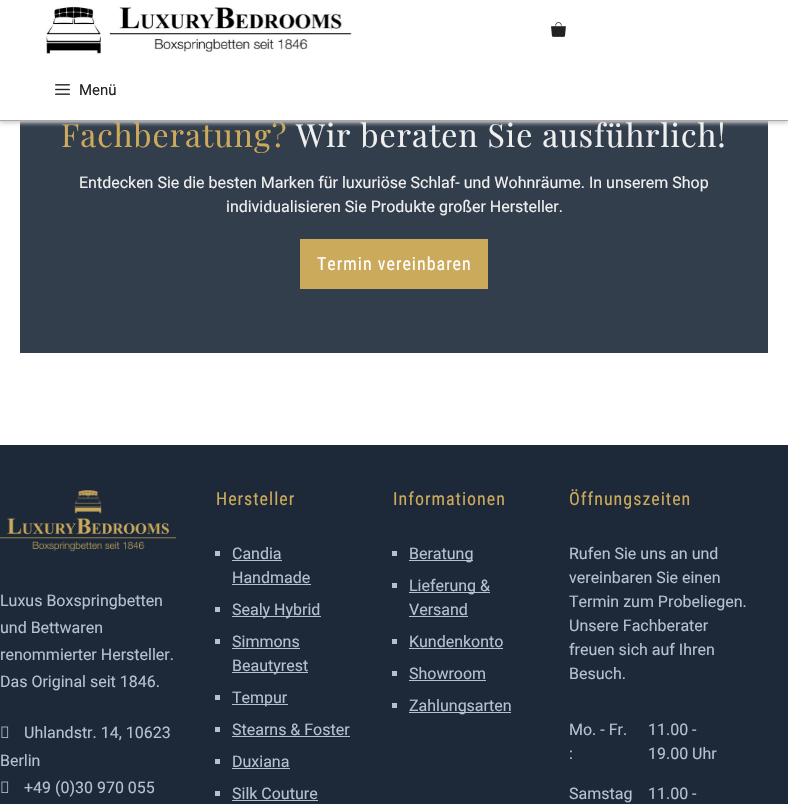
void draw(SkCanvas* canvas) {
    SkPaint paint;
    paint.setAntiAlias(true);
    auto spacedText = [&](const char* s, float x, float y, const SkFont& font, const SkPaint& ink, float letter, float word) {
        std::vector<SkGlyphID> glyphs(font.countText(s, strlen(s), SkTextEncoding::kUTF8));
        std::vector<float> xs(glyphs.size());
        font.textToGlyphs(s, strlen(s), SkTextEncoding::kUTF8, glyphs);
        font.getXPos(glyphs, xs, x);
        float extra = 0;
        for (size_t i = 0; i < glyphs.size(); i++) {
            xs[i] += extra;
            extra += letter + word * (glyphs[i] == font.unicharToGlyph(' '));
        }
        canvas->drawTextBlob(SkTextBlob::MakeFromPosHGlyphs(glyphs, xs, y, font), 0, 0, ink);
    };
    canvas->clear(0xFFFFFFFF);
    paint.setColor(0xFF333E4D);
    canvas->drawRect(SkRect::MakeXYWH(20, 121, 748, 232), paint);
    paint.setColor(0xFFCCCCCC);
    paint.setMaskFilter(SkMaskFilter::MakeBlur(kNormal_SkBlurStyle, 2));
    canvas->drawRect(SkRect::MakeXYWH(0, 2, 788, 121), paint);
    paint.setMaskFilter(nullptr);
    paint.setColor(0xFFFFFFFF);
    canvas->drawRect(SkRect::MakeXYWH(0, 0, 788, 120), paint);
    paint.setColor(0xFFAAAAAA);
    canvas->drawRect(SkRect::MakeXYWH(0, 120, 788, 1), paint);
    canvas->drawImageRect(SkImages::DeferredFromEncodedData(SkData::MakeFromFileName("img1.png")), SkRect::MakeXYWH(46, 6, 306, 49), SkSamplingOptions());
    canvas->drawImageRect(SkImages::DeferredFromEncodedData(SkData::MakeFromFileName("img2.png")), SkRect::MakeXYWH(551, 22, 15, 15), SkSamplingOptions());
    canvas->drawImageRect(SkImages::DeferredFromEncodedData(SkData::MakeFromFileName("img3.png")), SkRect::MakeXYWH(55, 84, 15, 11), SkSamplingOptions());
    SkFont font1(fontMgr->matchFamilyStyle("Roboto", SkFontStyle::Normal()), 15);
    font1.setSubpixel(true);
    paint.setColor(0xFF222222);
    canvas->drawString("Menü", 79, 95, font1, paint);
    SkFont font2(fontMgr->matchFamilyStyle("Playfair Display", SkFontStyle::Normal()), 32);
    font2.setSubpixel(true);
    paint.setColor(0xFFCBAA5C);
    spacedText("Fachberatung?", 61, 147, font2, paint, 1, 0);
    paint.setColor(0xFFF0F0F0);
    spacedText("Wir beraten Sie ausführlich!", 296, 147, font2, paint, 1, 0);
    SkFont font3(fontMgr->matchFamilyStyle("Roboto", SkFontStyle::Normal()), 16);
    font3.setSubpixel(true);
    canvas->drawString("Entdecken Sie die besten Marken für luxuriöse Schlaf- und Wohnräume. In unserem Shop", 79, 188, font3, paint);
    canvas->drawString("individualisieren Sie Produkte großer Hersteller.", 226, 212, font3, paint);
    paint.setColor(0xFFCBAA5C);
    canvas->drawRect(SkRect::MakeXYWH(300, 239, 188, 50), paint);
    SkFont font4(fontMgr->matchFamilyStyle("Roboto Condensed", SkFontStyle::Normal()), 18);
    font4.setSubpixel(true);
    paint.setColor(0xFFFFFFFF);
    spacedText("Termin vereinbaren", 317, 270, font4, paint, 1, 0);
    paint.setColor(0xFF1D2939);
    canvas->drawRect(SkRect::MakeXYWH(0, 445, 788, 359), paint);
    canvas->drawImageRect(SkImages::DeferredFromEncodedData(SkData::MakeFromFileName("img4.png")), SkRect::MakeXYWH(0, 490, 176, 62), SkSamplingOptions());
    paint.setColor(0xFFB6C0CE);
    canvas->drawString("Luxus Boxspringbetten", 0, 606, font3, paint);
    canvas->drawString("und Bettwaren", 0, 633, font3, paint);
    canvas->drawString("renommierter Hersteller.", 0, 660, font3, paint);
    canvas->drawString("Das Original seit 1846.", 0, 687, font3, paint);
    canvas->drawImageRect(SkImages::DeferredFromEncodedData(SkData::MakeFromFileName("img5.png")), SkRect::MakeXYWH(1, 726, 8, 12), SkSamplingOptions());
    canvas->drawString("Uhlandstr. 14, 10623", 24, 738, font3, paint);
    canvas->drawString("Berlin", 0, 766, font3, paint);
    canvas->drawImageRect(SkImages::DeferredFromEncodedData(SkData::MakeFromFileName("img5.png")), SkRect::MakeXYWH(1, 781, 8, 12), SkSamplingOptions());
    canvas->drawString("+49 (0)30 970 055", 24, 793, font3, paint);
    paint.setColor(0xFFCBAA5C);
    spacedText("Hersteller", 216, 505, font4, paint, 1, 0);
    paint.setColor(0xFFB6C0CE);
    canvas->drawRect(SkRect::MakeXYWH(215, 551, 5, 5), paint);
    canvas->drawString("Candia", 232, 559, font3, paint);
    canvas->drawRect(SkRect::MakeXYWH(232, 560, 50, 1), paint);
    canvas->drawString("Handmade", 232, 583, font3, paint);
    canvas->drawRect(SkRect::MakeXYWH(232, 584, 79, 1), paint);
    canvas->drawRect(SkRect::MakeXYWH(215, 607, 5, 5), paint);
    canvas->drawRect(SkRect::MakeXYWH(232, 616, 89, 1), paint);
    canvas->drawString("Sealy Hybrid", 232, 615, font3, paint);
    canvas->drawRect(SkRect::MakeXYWH(215, 639, 5, 5), paint);
    canvas->drawString("Simmons", 232, 647, font3, paint);
    canvas->drawRect(SkRect::MakeXYWH(232, 648, 68, 1), paint);
    canvas->drawRect(SkRect::MakeXYWH(232, 672, 76, 1), paint);
    canvas->drawString("Beautyrest", 232, 671, font3, paint);
    canvas->drawRect(SkRect::MakeXYWH(215, 695, 5, 5), paint);
    canvas->drawRect(SkRect::MakeXYWH(232, 704, 56, 1), paint);
    canvas->drawString("Tempur", 232, 703, font3, paint);
    canvas->drawRect(SkRect::MakeXYWH(215, 727, 5, 5), paint);
    canvas->drawString("Stearns & Foster", 232, 735, font3, paint);
    canvas->drawRect(SkRect::MakeXYWH(232, 736, 118, 1), paint);
    canvas->drawRect(SkRect::MakeXYWH(215, 759, 5, 5), paint);
    canvas->drawString("Duxiana", 232, 767, font3, paint);
    canvas->drawRect(SkRect::MakeXYWH(232, 768, 58, 1), paint);
    canvas->drawRect(SkRect::MakeXYWH(215, 791, 5, 5), paint);
    canvas->drawString("Silk Couture", 232, 799, font3, paint);
    canvas->drawRect(SkRect::MakeXYWH(232, 800, 86, 1), paint);
    paint.setColor(0xFFCBAA5C);
    spacedText("Informationen", 393, 505, font4, paint, 1, 0);
    paint.setColor(0xFFB6C0CE);
    canvas->drawRect(SkRect::MakeXYWH(392, 551, 5, 5), paint);
    canvas->drawRect(SkRect::MakeXYWH(409, 560, 64, 1), paint);
    canvas->drawString("Beratung", 409, 559, font3, paint);
    canvas->drawRect(SkRect::MakeXYWH(392, 583, 5, 5), paint);
    canvas->drawRect(SkRect::MakeXYWH(409, 592, 81, 1), paint);
    canvas->drawString("Lieferung &", 409, 591, font3, paint);
    canvas->drawString("Versand", 409, 615, font3, paint);
    canvas->drawRect(SkRect::MakeXYWH(409, 616, 59, 1), paint);
    canvas->drawRect(SkRect::MakeXYWH(392, 639, 5, 5), paint);
    canvas->drawString("Kundenkonto", 409, 647, font3, paint);
    canvas->drawRect(SkRect::MakeXYWH(409, 648, 94, 1), paint);
    canvas->drawRect(SkRect::MakeXYWH(392, 671, 5, 5), paint);
    canvas->drawString("Showroom", 409, 679, font3, paint);
    canvas->drawRect(SkRect::MakeXYWH(409, 680, 77, 1), paint);
    canvas->drawRect(SkRect::MakeXYWH(392, 703, 5, 5), paint);
    canvas->drawRect(SkRect::MakeXYWH(409, 712, 102, 1), paint);
    canvas->drawString("Zahlungsarten", 409, 711, font3, paint);
    paint.setColor(0xFFCBAA5C);
    spacedText("Öffnungszeiten", 569, 505, font4, paint, 1, 0);
    paint.setColor(0xFFB6C0CE);
    canvas->drawString("Rufen Sie uns an und", 569, 559, font3, paint);
    canvas->drawString("vereinbaren Sie einen", 569, 583, font3, paint);
    canvas->drawString("Termin zum Probeliegen.", 569, 607, font3, paint);
    canvas->drawString("Unsere Fachberater", 569, 631, font3, paint);
    canvas->drawString("freuen sich auf Ihren", 569, 655, font3, paint);
    canvas->drawString("Besuch.", 569, 679, font3, paint);
    canvas->drawString("Mo. - Fr.", 569, 735, font3, paint);
    canvas->drawString(":", 569, 759, font3, paint);
    canvas->drawString("11.00 -", 648, 735, font3, paint);
    canvas->drawString("19.00 Uhr", 648, 759, font3, paint);
    canvas->drawString("Samstag", 569, 799, font3, paint);
    canvas->drawString("11.00 -", 648, 799, font3, paint);
}
